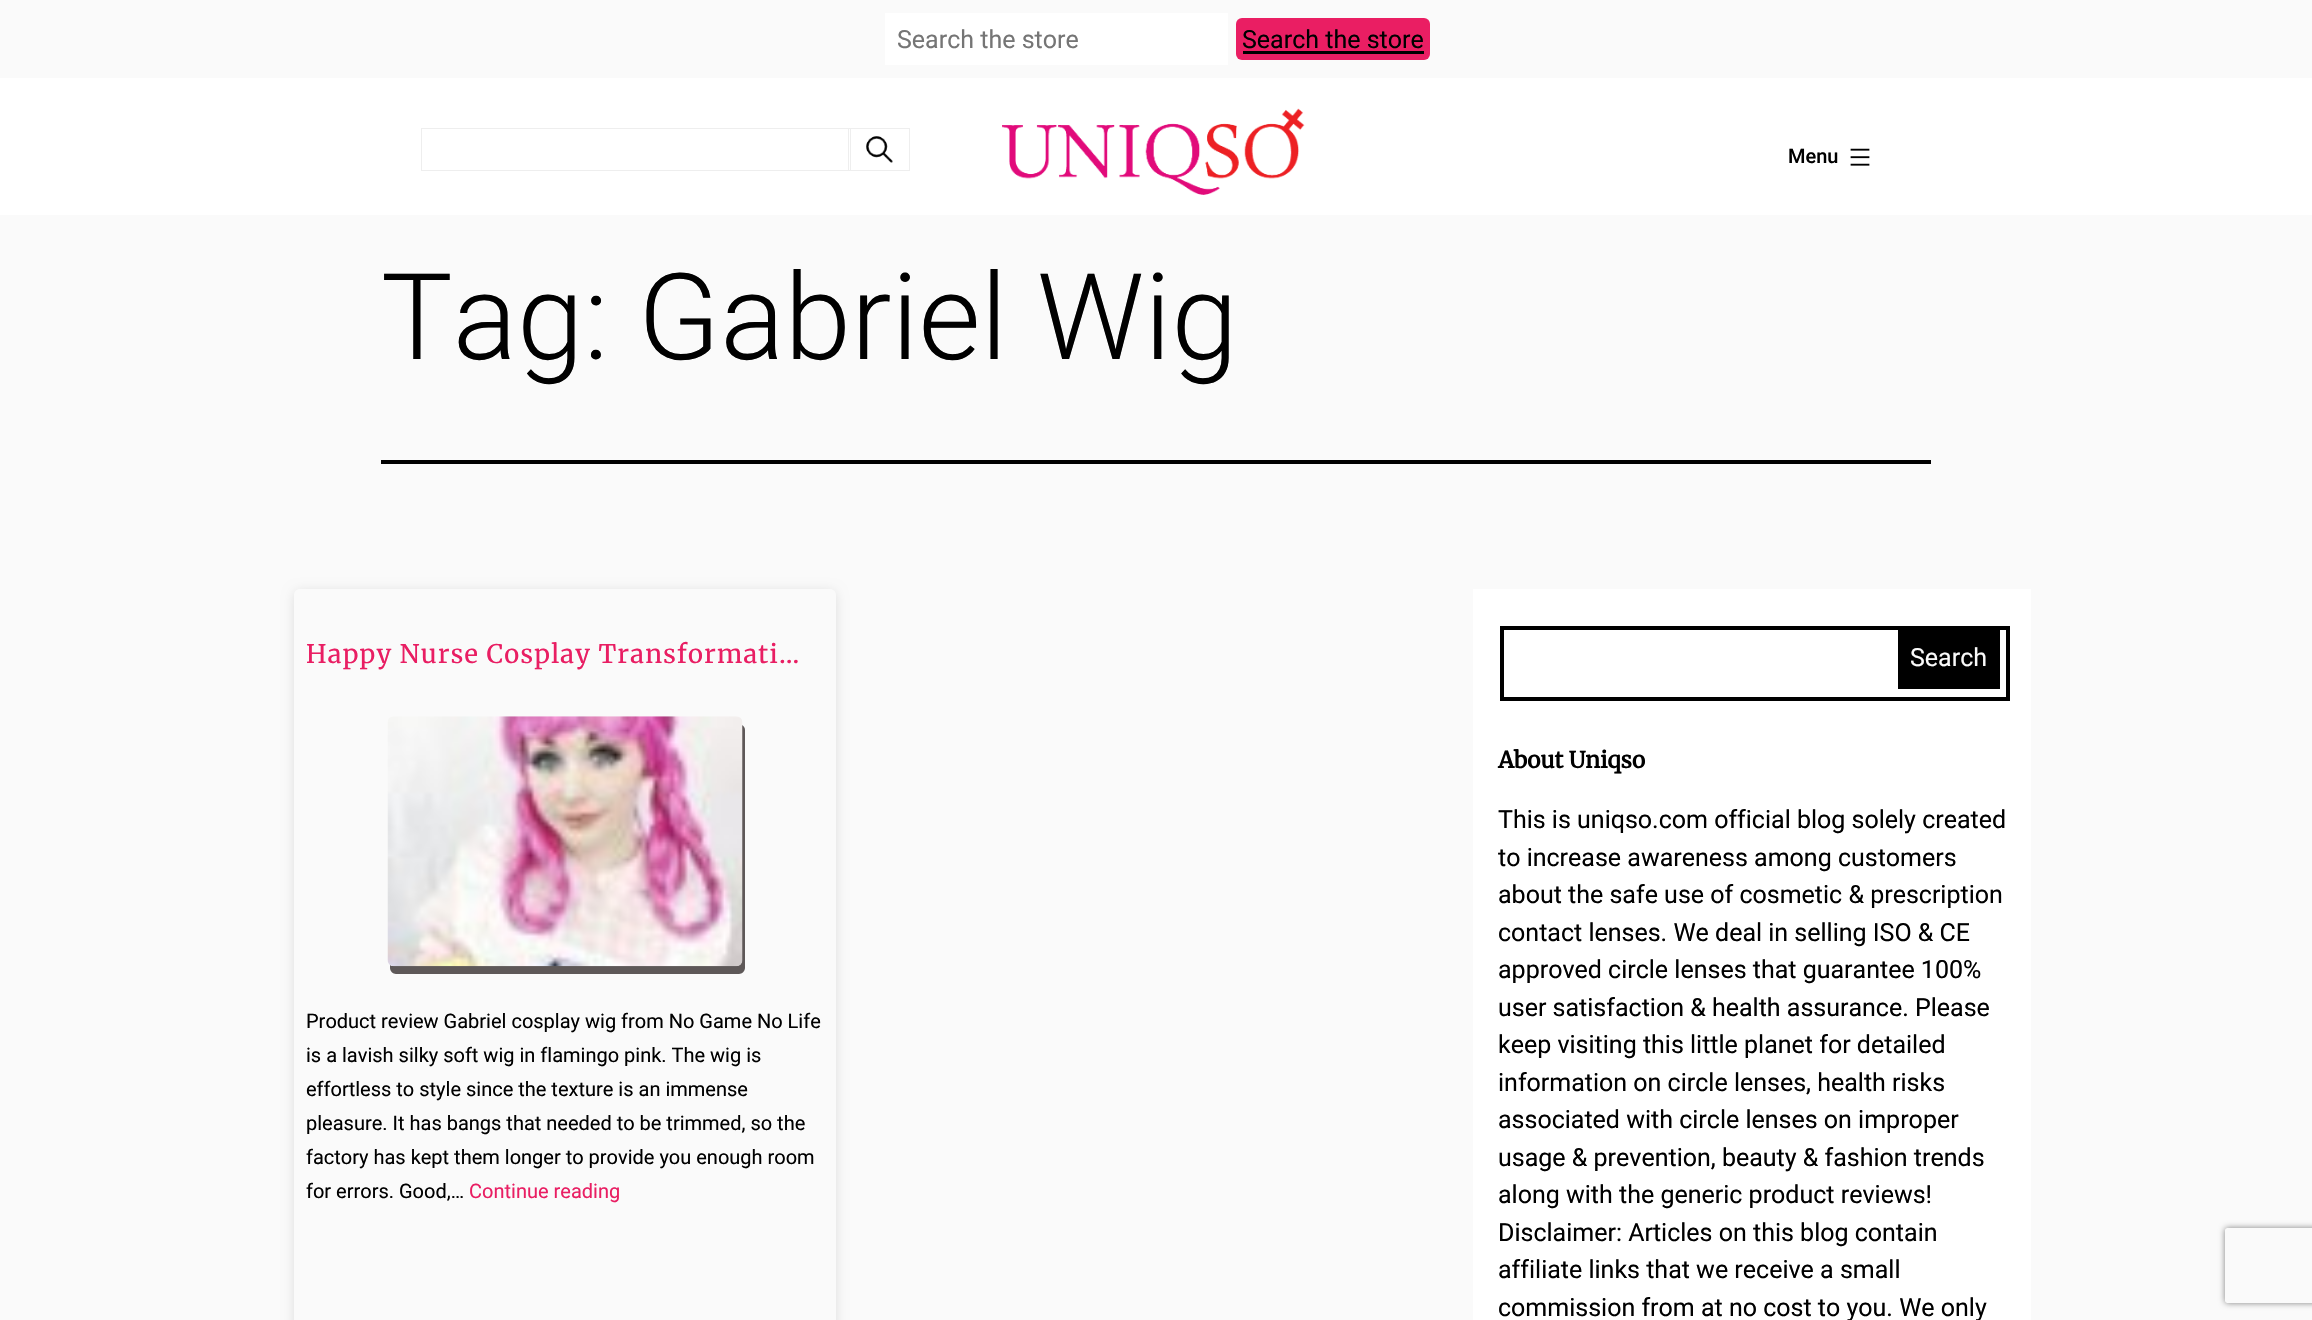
void draw(SkCanvas* canvas) {
    SkPaint paint;
    paint.setAntiAlias(true);
    auto spacedText = [&](const char* s, float x, float y, const SkFont& font, const SkPaint& ink, float letter, float word) {
        std::vector<SkGlyphID> glyphs(font.countText(s, strlen(s), SkTextEncoding::kUTF8));
        std::vector<float> xs(glyphs.size());
        font.textToGlyphs(s, strlen(s), SkTextEncoding::kUTF8, glyphs);
        font.getXPos(glyphs, xs, x);
        float extra = 0;
        for (size_t i = 0; i < glyphs.size(); i++) {
            xs[i] += extra;
            extra += letter + word * (glyphs[i] == font.unicharToGlyph(' '));
        }
        canvas->drawTextBlob(SkTextBlob::MakeFromPosHGlyphs(glyphs, xs, y, font), 0, 0, ink);
    };
    canvas->clear(0xFFFAFAFA);
    paint.setColor(0xFFFFFFFF);
    canvas->drawRect(SkRect::MakeXYWH(885, 13, 343, 52), paint);
    SkFont font1(fontMgr->matchFamilyStyle("Roboto", SkFontStyle::Normal()), 25);
    font1.setSubpixel(true);
    paint.setColor(0xFF757575);
    canvas->drawString("Search the store", 897, 48, font1, paint);
    paint.setColor(0xFFEA1E63);
    canvas->drawRoundRect(SkRect::MakeXYWH(1236, 18, 194, 42), 6, 6, paint);
    paint.setColor(0xFF000000);
    canvas->drawString("Search the store", 1242, 48, font1, paint);
    canvas->drawRect(SkRect::MakeXYWH(1243, 51, 181, 3), paint);
    paint.setColor(0xFFFFFFFF);
    canvas->drawRect(SkRect::MakeXYWH(0, 78, 2312, 137), paint);
    paint.setStyle(SkPaint::kStroke_Style);
    paint.setStrokeWidth(1);
    paint.setColor(0xFFEEEEEE);
    canvas->drawRect(SkRect::MakeXYWH(421.5f, 128.5f, 429, 42), paint);
    canvas->drawImageRect(SkImages::DeferredFromEncodedData(SkData::MakeFromFileName("img1.png")), SkRect::MakeXYWH(866, 136, 27, 27), SkSamplingOptions());
    canvas->drawRect(SkRect::MakeXYWH(848.5f, 128.5f, 61, 42), paint);
    canvas->drawImageRect(SkImages::DeferredFromEncodedData(SkData::MakeFromFileName("img2.png")), SkRect::MakeXYWH(1002, 108, 303, 87), SkSamplingOptions());
    SkFont font2(fontMgr->matchFamilyStyle("Roboto", SkFontStyle(500, SkFontStyle::kNormal_Width, SkFontStyle::kUpright_Slant)), 20);
    font2.setSubpixel(true);
    paint.setStyle(SkPaint::kFill_Style);
    paint.setColor(0xFF000000);
    canvas->drawString("Menu", 1788, 163, font2, paint);
    canvas->drawImageRect(SkImages::DeferredFromEncodedData(SkData::MakeFromFileName("img3.png")), SkRect::MakeXYWH(1850, 148, 20, 18), SkSamplingOptions());
    canvas->drawRect(SkRect::MakeXYWH(381, 460, 1550, 4), paint);
    SkFont font3(fontMgr->matchFamilyStyle("Roboto", SkFontStyle(300, SkFontStyle::kNormal_Width, SkFontStyle::kUpright_Slant)), 120);
    font3.setSubpixel(true);
    canvas->drawString("Tag: Gabriel Wig", 381, 359, font3, paint);
    canvas->save();
    canvas->clipPath(SkPathBuilder(SkPathFillType::kEvenOdd).moveTo(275, 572).lineTo(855, 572).lineTo(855, 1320).lineTo(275, 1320).close().moveTo(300, 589).lineTo(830, 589).cubicTo(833.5f, 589, 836, 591.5f, 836, 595).lineTo(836, 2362).cubicTo(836, 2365.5f, 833.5f, 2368, 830, 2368).lineTo(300, 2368).cubicTo(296.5f, 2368, 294, 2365.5f, 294, 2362).lineTo(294, 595).cubicTo(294, 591.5f, 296.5f, 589, 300, 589).close().detach(), true);
    paint.setColor(0x1C000000);
    paint.setMaskFilter(SkMaskFilter::MakeBlur(kNormal_SkBlurStyle, 6));
    canvas->drawRoundRect(SkRect::MakeXYWH(294, 591, 542, 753), 6, 6, paint);
    paint.setMaskFilter(nullptr);
    canvas->restore();
    SkFont font4(fontMgr->matchFamilyStyle("Merriweather", SkFontStyle(300, SkFontStyle::kNormal_Width, SkFontStyle::kUpright_Slant)), 25.5f);
    font4.setSubpixel(true);
    paint.setColor(0xFFE91E63);
    spacedText("Happy Nurse Cosplay Transformati…", 306, 663, font4, paint, 1.25f, 0);
    paint.setColor(0xFF5E5858);
    canvas->drawPath(SkPathBuilder().moveTo(390, 965).lineTo(390, 968).cubicTo(390, 971, 393, 974, 396, 974).lineTo(739, 974).cubicTo(742, 974, 745, 971, 745, 968).lineTo(745, 730).cubicTo(745, 728, 744, 726, 742, 725).lineTo(742, 960).cubicTo(742, 963, 740, 966, 736, 966).lineTo(394, 966).cubicTo(392, 966, 391, 966, 390, 965).close().detach(), paint);
    canvas->drawImageRect(SkImages::DeferredFromEncodedData(SkData::MakeFromFileName("img4.png")), SkRect::MakeXYWH(387, 716, 356, 251), SkSamplingOptions());
    SkFont font5(fontMgr->matchFamilyStyle("Roboto", SkFontStyle::Normal()), 20);
    font5.setSubpixel(true);
    paint.setColor(0xFF000000);
    canvas->drawString("Product review Gabriel cosplay wig from No Game No Life", 306, 1028, font5, paint);
    canvas->drawString("is a lavish silky soft wig in flamingo pink. The wig is", 306, 1062, font5, paint);
    canvas->drawString("effortless to style since the texture is an immense", 306, 1096, font5, paint);
    canvas->drawString("pleasure. It has bangs that needed to be trimmed, so the", 306, 1130, font5, paint);
    canvas->drawString("factory has kept them longer to provide you enough room", 306, 1164, font5, paint);
    canvas->drawString("for errors. Good,…", 306, 1198, font5, paint);
    paint.setColor(0xFFE91E63);
    canvas->drawString("Continue reading", 469, 1198, font5, paint);
    paint.setColor(0xFFFFFFFF);
    canvas->drawRect(SkRect::MakeXYWH(1473, 589, 558, 731), paint);
    paint.setStyle(SkPaint::kStroke_Style);
    paint.setStrokeWidth(4);
    paint.setColor(0xFF000000);
    canvas->drawRect(SkRect::MakeXYWH(1502, 628, 506, 71), paint);
    paint.setStyle(SkPaint::kFill_Style);
    canvas->drawRect(SkRect::MakeXYWH(1898, 630, 102, 59), paint);
    paint.setColor(0xFFFAFAFA);
    canvas->drawString("Search", 1910, 666, font1, paint);
    SkFont font6(fontMgr->matchFamilyStyle("Merriweather", SkFontStyle::Bold()), 22.5f);
    font6.setSubpixel(true);
    paint.setColor(0xFF000000);
    canvas->drawString("About Uniqso", 1498, 768, font6, paint);
    canvas->drawString("This is uniqso.com official blog solely created", 1498, 828, font1, paint);
    canvas->drawString("to increase awareness among customers", 1498, 866, font1, paint);
    canvas->drawString("about the safe use of cosmetic & prescription", 1498, 903, font1, paint);
    canvas->drawString("contact lenses. We deal in selling ISO & CE", 1498, 941, font1, paint);
    canvas->drawString("approved circle lenses that guarantee 100%", 1498, 978, font1, paint);
    canvas->drawString("user satisfaction & health assurance. Please", 1498, 1016, font1, paint);
    canvas->drawString("keep visiting this little planet for detailed", 1498, 1053, font1, paint);
    canvas->drawString("information on circle lenses, health risks", 1498, 1091, font1, paint);
    canvas->drawString("associated with circle lenses on improper", 1498, 1128, font1, paint);
    canvas->drawString("usage & prevention, beauty & fashion trends", 1498, 1166, font1, paint);
    canvas->drawString("along with the generic product reviews!", 1498, 1203, font1, paint);
    canvas->drawString("Disclaimer: Articles on this blog contain", 1498, 1241, font1, paint);
    canvas->drawString("affiliate links that we receive a small", 1498, 1278, font1, paint);
    canvas->drawString("commission from at no cost to you. We only", 1498, 1316, font1, paint);
    canvas->save();
    canvas->clipPath(SkPathBuilder(SkPathFillType::kEvenOdd).moveTo(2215, 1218).lineTo(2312, 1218).lineTo(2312, 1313).lineTo(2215, 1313).close().moveTo(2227.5f, 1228).lineTo(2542.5f, 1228).cubicTo(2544, 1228, 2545, 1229, 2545, 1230.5f).lineTo(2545, 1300.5f).cubicTo(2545, 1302, 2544, 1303, 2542.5f, 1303).lineTo(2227.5f, 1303).cubicTo(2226, 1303, 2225, 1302, 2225, 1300.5f).lineTo(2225, 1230.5f).cubicTo(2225, 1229, 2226, 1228, 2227.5f, 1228).close().detach(), true);
    paint.setColor(0xFF808080);
    paint.setMaskFilter(SkMaskFilter::MakeBlur(kNormal_SkBlurStyle, 3));
    canvas->drawRoundRect(SkRect::MakeXYWH(2225, 1228, 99, 75), 2.5f, 2.5f, paint);
    paint.setMaskFilter(nullptr);
    canvas->restore();
}
